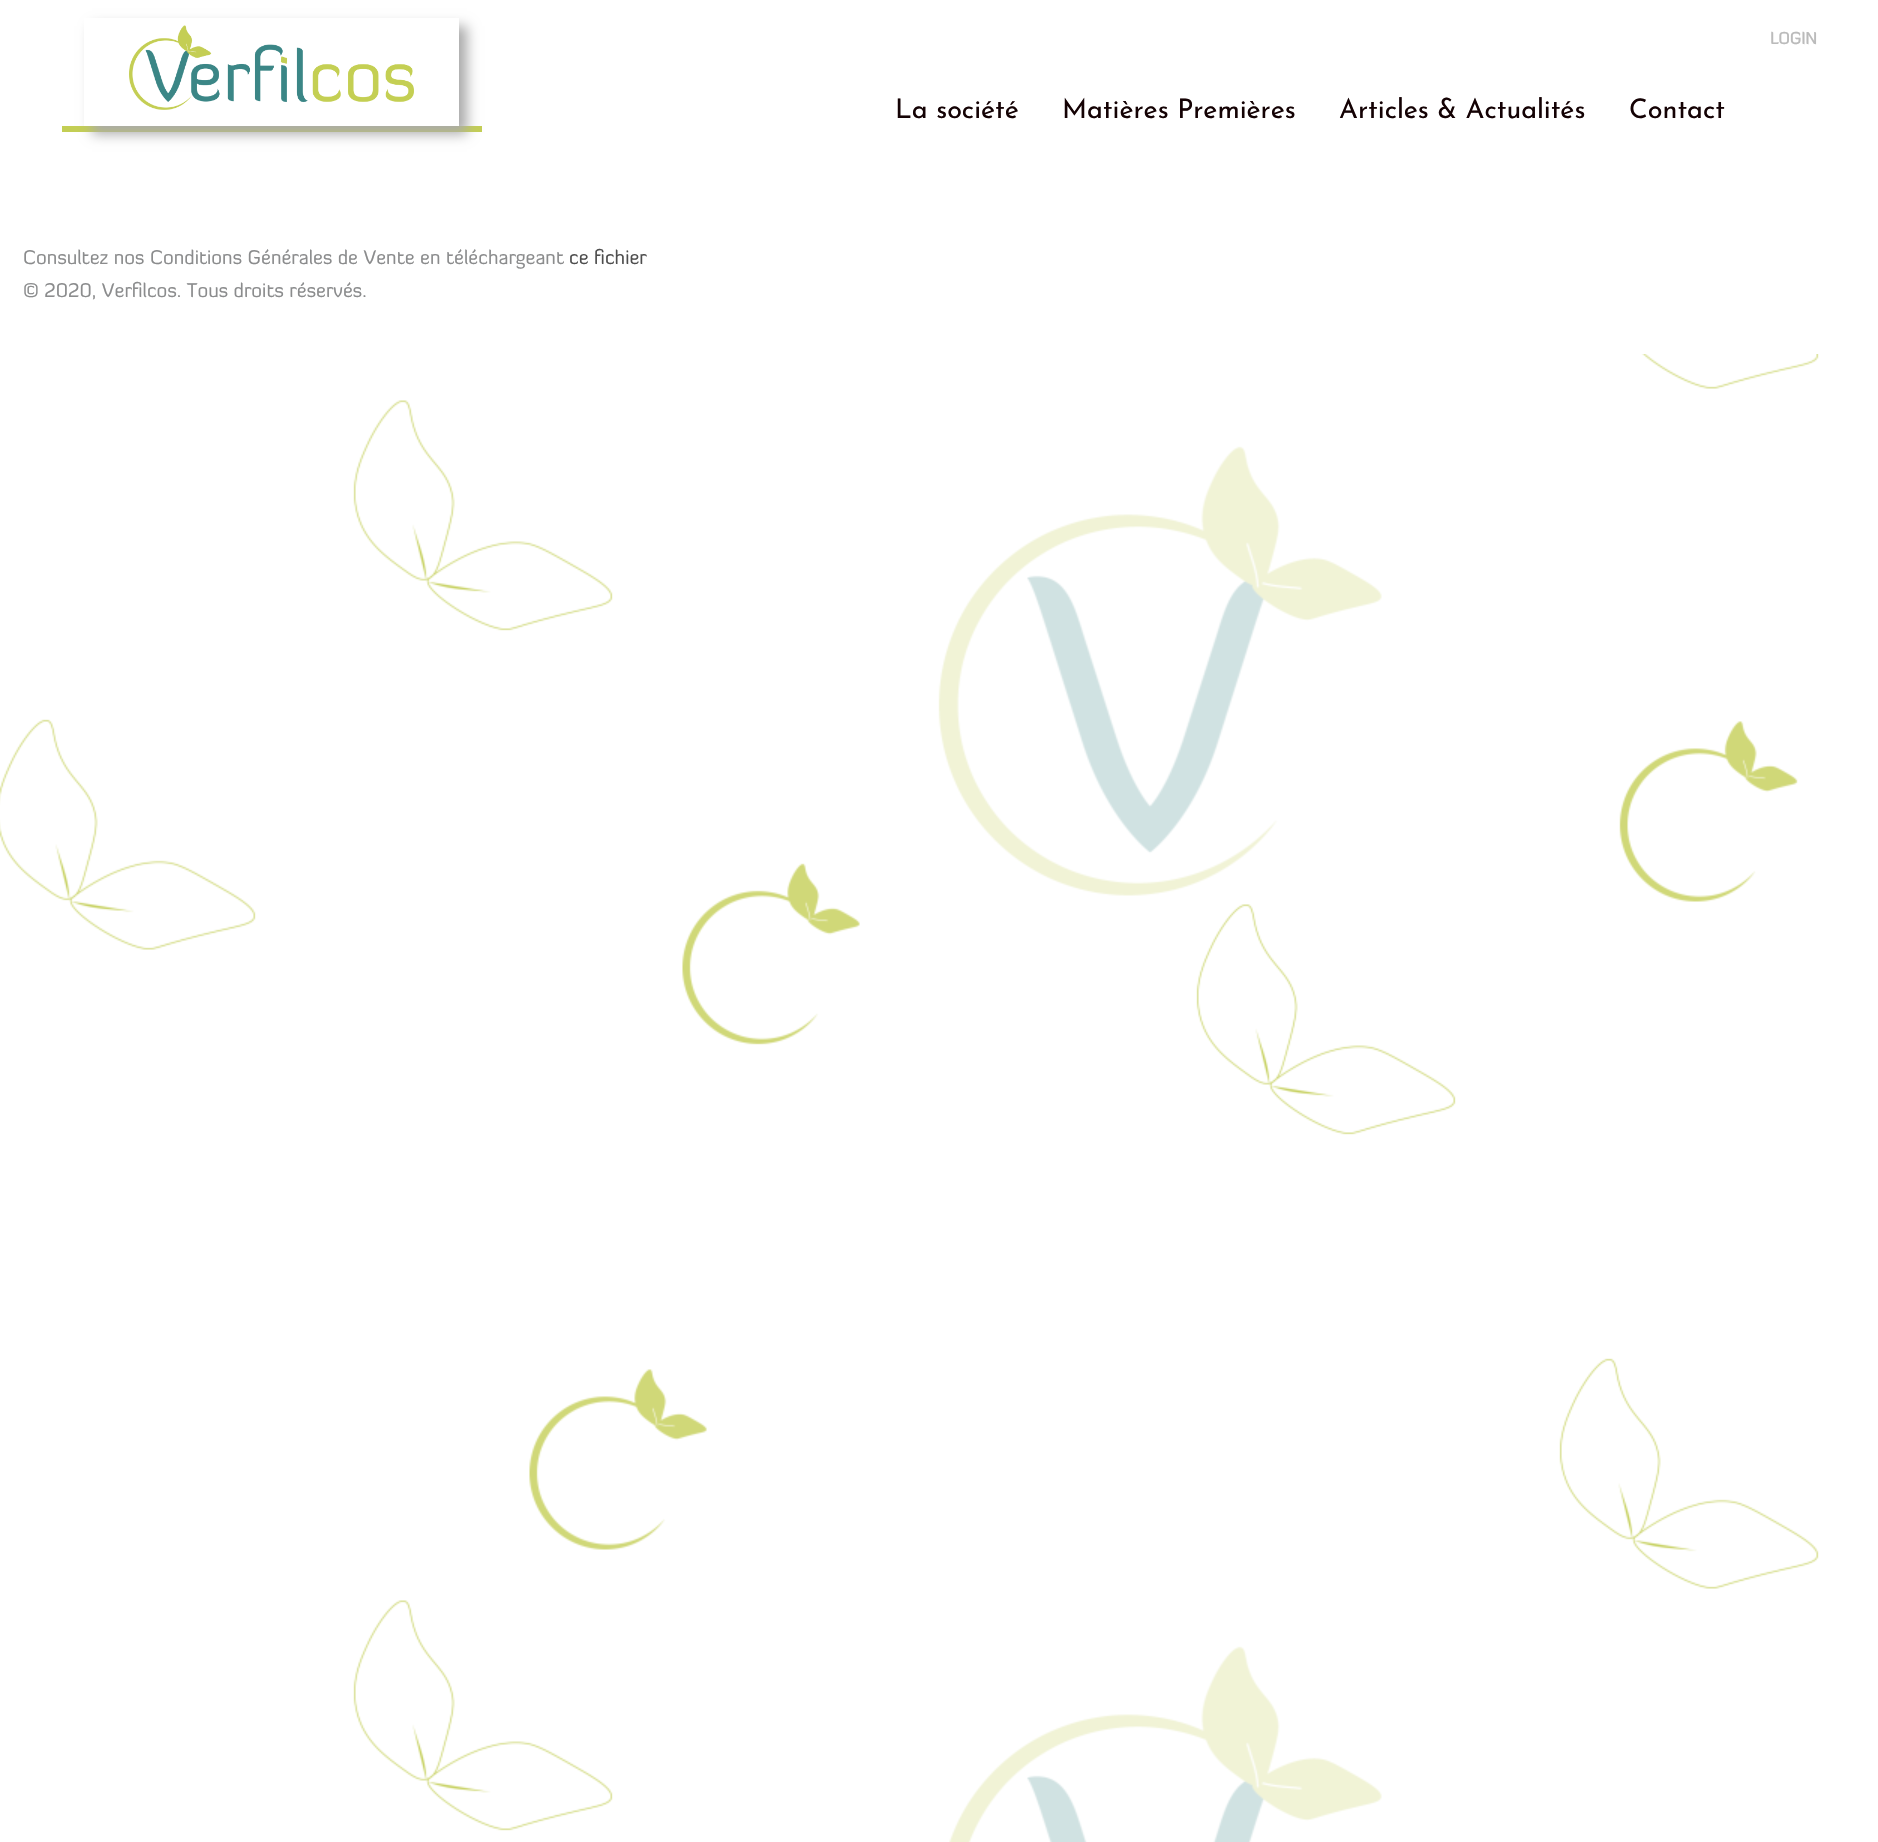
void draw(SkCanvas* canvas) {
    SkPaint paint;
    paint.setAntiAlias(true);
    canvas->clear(0xFFFFFFFF);
    canvas->drawImageRect(SkImages::DeferredFromEncodedData(SkData::MakeFromFileName("img1.png")), SkRect::MakeXYWH(0, 354, 1819, 1488), SkSamplingOptions());
    paint.setColor(0xFFC3CE54);
    canvas->drawRect(SkRect::MakeXYWH(62, 126, 420, 6), paint);
    canvas->save();
    canvas->clipPath(SkPathBuilder(SkPathFillType::kEvenOdd).moveTo(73, 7).lineTo(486, 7).lineTo(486, 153).lineTo(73, 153).close().moveTo(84, 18).lineTo(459, 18).lineTo(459, 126).lineTo(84, 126).close().detach(), true);
    paint.setColor(0xFFAAAAAA);
    paint.setMaskFilter(SkMaskFilter::MakeBlur(kNormal_SkBlurStyle, 6));
    canvas->drawRect(SkRect::MakeXYWH(92, 26, 375, 108), paint);
    paint.setMaskFilter(nullptr);
    canvas->restore();
    canvas->drawImageRect(SkImages::DeferredFromEncodedData(SkData::MakeFromFileName("img2.png")), SkRect::MakeXYWH(129, 25, 285, 85), SkSamplingOptions());
    SkFont font1(fontMgr->matchFamilyStyle("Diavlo", SkFontStyle::Bold()), 16.5f);
    font1.setSubpixel(true);
    paint.setColor(0xFFBBBBBB);
    canvas->drawString("LOGIN", 1770, 44, font1, paint);
    SkFont font2(fontMgr->matchFamilyStyle("Josefin Sans", SkFontStyle(100, SkFontStyle::kNormal_Width, SkFontStyle::kUpright_Slant)), 27);
    font2.setSubpixel(true);
    paint.setColor(0xFF140204);
    canvas->drawString("La société", 895, 118, font2, paint);
    canvas->drawString("Matières Premières", 1062, 118, font2, paint);
    canvas->drawString("Articles & Actualités", 1339, 118, font2, paint);
    canvas->drawString("Contact", 1629, 118, font2, paint);
    SkFont font3(fontMgr->matchFamilyStyle("Diavlo", SkFontStyle::Normal()), 19.5f);
    font3.setSubpixel(true);
    paint.setColor(0xFF8B8C8D);
    canvas->drawString("Consultez nos Conditions Générales de Vente en téléchargeant", 23, 264, font3, paint);
    paint.setColor(0xFF4E4E4E);
    canvas->drawString("ce fichier", 569, 264, font3, paint);
    paint.setColor(0xFF8B8C8D);
    canvas->drawString("© 2020, Verfilcos. Tous droits réservés.", 23, 297, font3, paint);
}
